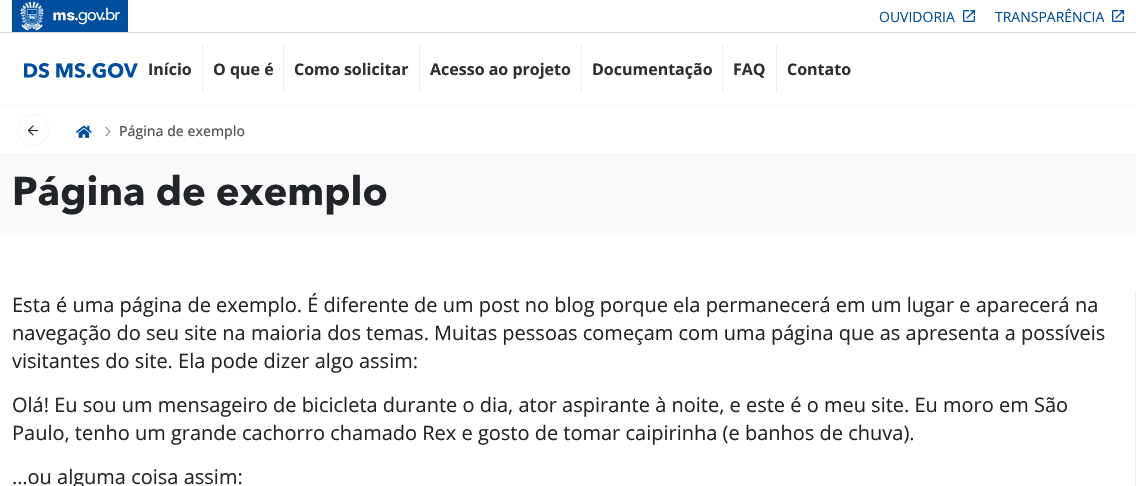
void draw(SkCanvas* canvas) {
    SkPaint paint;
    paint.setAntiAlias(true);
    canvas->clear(0xFFFFFFFF);
    paint.setColor(0xFFD8D8D8);
    canvas->drawRect(SkRect::MakeXYWH(0, 32, 1136, 1), paint);
    paint.setColor(0xFF004F9F);
    canvas->drawRect(SkRect::MakeXYWH(12, 0, 116, 32), paint);
    canvas->drawImageRect(SkImages::DeferredFromEncodedData(SkData::MakeFromFileName("img1.png")), SkRect::MakeXYWH(20, 1, 100, 30), SkSamplingOptions());
    SkFont font1(fontMgr->matchFamilyStyle("Open Sans", SkFontStyle::Normal()), 14);
    font1.setSubpixel(true);
    canvas->drawString("OUVIDORIA", 879, 22, font1, paint);
    canvas->drawImageRect(SkImages::DeferredFromEncodedData(SkData::MakeFromFileName("img2.png")), SkRect::MakeXYWH(963, 10, 12, 12), SkSamplingOptions());
    canvas->drawString("TRANSPARÊNCIA", 995, 22, font1, paint);
    canvas->drawImageRect(SkImages::DeferredFromEncodedData(SkData::MakeFromFileName("img2.png")), SkRect::MakeXYWH(1112, 10, 12, 12), SkSamplingOptions());
    canvas->drawImageRect(SkImages::DeferredFromEncodedData(SkData::MakeFromFileName("img3.png")), SkRect::MakeXYWH(24, 63, 114, 15), SkSamplingOptions());
    SkFont font2(fontMgr->matchFamilyStyle("Open Sans", SkFontStyle::Bold()), 16);
    font2.setSubpixel(true);
    paint.setColor(0xFF30302E);
    canvas->drawString("Início", 148, 75, font2, paint);
    paint.setColor(0xFFEBEBEB);
    canvas->drawRect(SkRect::MakeXYWH(202, 45, 1, 48), paint);
    paint.setColor(0xFF30302E);
    canvas->drawString("O que é", 213, 75, font2, paint);
    paint.setColor(0xFFEBEBEB);
    canvas->drawRect(SkRect::MakeXYWH(283, 45, 1, 48), paint);
    paint.setColor(0xFF30302E);
    canvas->drawString("Como solicitar", 294, 75, font2, paint);
    paint.setColor(0xFFEBEBEB);
    canvas->drawRect(SkRect::MakeXYWH(419, 45, 1, 48), paint);
    paint.setColor(0xFF30302E);
    canvas->drawString("Acesso ao projeto", 430, 75, font2, paint);
    paint.setColor(0xFFEBEBEB);
    canvas->drawRect(SkRect::MakeXYWH(581, 45, 1, 48), paint);
    paint.setColor(0xFF30302E);
    canvas->drawString("Documentação", 592, 75, font2, paint);
    paint.setColor(0xFFEBEBEB);
    canvas->drawRect(SkRect::MakeXYWH(722, 45, 1, 48), paint);
    paint.setColor(0xFF30302E);
    canvas->drawString("FAQ", 733, 75, font2, paint);
    paint.setColor(0xFFEBEBEB);
    canvas->drawRect(SkRect::MakeXYWH(776, 45, 1, 48), paint);
    paint.setColor(0xFF30302E);
    canvas->drawString("Contato", 787, 75, font2, paint);
    paint.setColor(0xFFF5F5F5);
    canvas->drawRect(SkRect::MakeXYWH(0, 105, 1136, 1), paint);
    canvas->drawRect(SkRect::MakeXYWH(0, 154, 1136, 1), paint);
    canvas->drawImageRect(SkImages::DeferredFromEncodedData(SkData::MakeFromFileName("img4.png")), SkRect::MakeXYWH(17, 114, 32, 32), SkSamplingOptions());
    canvas->drawImageRect(SkImages::DeferredFromEncodedData(SkData::MakeFromFileName("img5.png")), SkRect::MakeXYWH(76, 125, 16, 13), SkSamplingOptions());
    canvas->drawImageRect(SkImages::DeferredFromEncodedData(SkData::MakeFromFileName("img6.png")), SkRect::MakeXYWH(105, 126, 6, 11), SkSamplingOptions());
    SkFont font3(fontMgr->matchFamilyStyle("Open Sans", SkFontStyle(500, SkFontStyle::kNormal_Width, SkFontStyle::kUpright_Slant)), 14);
    font3.setSubpixel(true);
    paint.setColor(0xFF565654);
    canvas->drawString("Página de exemplo", 119, 136, font3, paint);
    paint.setColor(0xFFF9F9F9);
    canvas->drawRect(SkRect::MakeXYWH(0, 155, 1136, 80), paint);
    SkFont font4(fontMgr->matchFamilyStyle("Avenir Next", SkFontStyle::Bold()), 40);
    font4.setSubpixel(true);
    paint.setColor(0xFF212529);
    canvas->drawString("Página de exemplo", 12, 205, font4, paint);
    paint.setColor(0xFFEBEBEB);
    canvas->drawRect(SkRect::MakeXYWH(1135, 291, 1, 195), paint);
    SkFont font5(fontMgr->matchFamilyStyle("Open Sans", SkFontStyle::Normal()), 20);
    font5.setSubpixel(true);
    paint.setColor(0xFF212529);
    canvas->drawString("Esta é uma página de exemplo. É diferente de um post no blog porque ela permanecerá em um lugar e aparecerá na", 12, 312, font5, paint);
    canvas->drawString("navegação do seu site na maioria dos temas. Muitas pessoas começam com uma página que as apresenta a possíveis", 12, 340, font5, paint);
    canvas->drawString("visitantes do site. Ela pode dizer algo assim:", 12, 368, font5, paint);
    canvas->drawString("Olá! Eu sou um mensageiro de bicicleta durante o dia, ator aspirante à noite, e este é o meu site. Eu moro em São", 12, 412, font5, paint);
    canvas->drawString("Paulo, tenho um grande cachorro chamado Rex e gosto de tomar caipirinha (e banhos de chuva).", 12, 440, font5, paint);
    canvas->drawString("…ou alguma coisa assim:", 12, 484, font5, paint);
}
